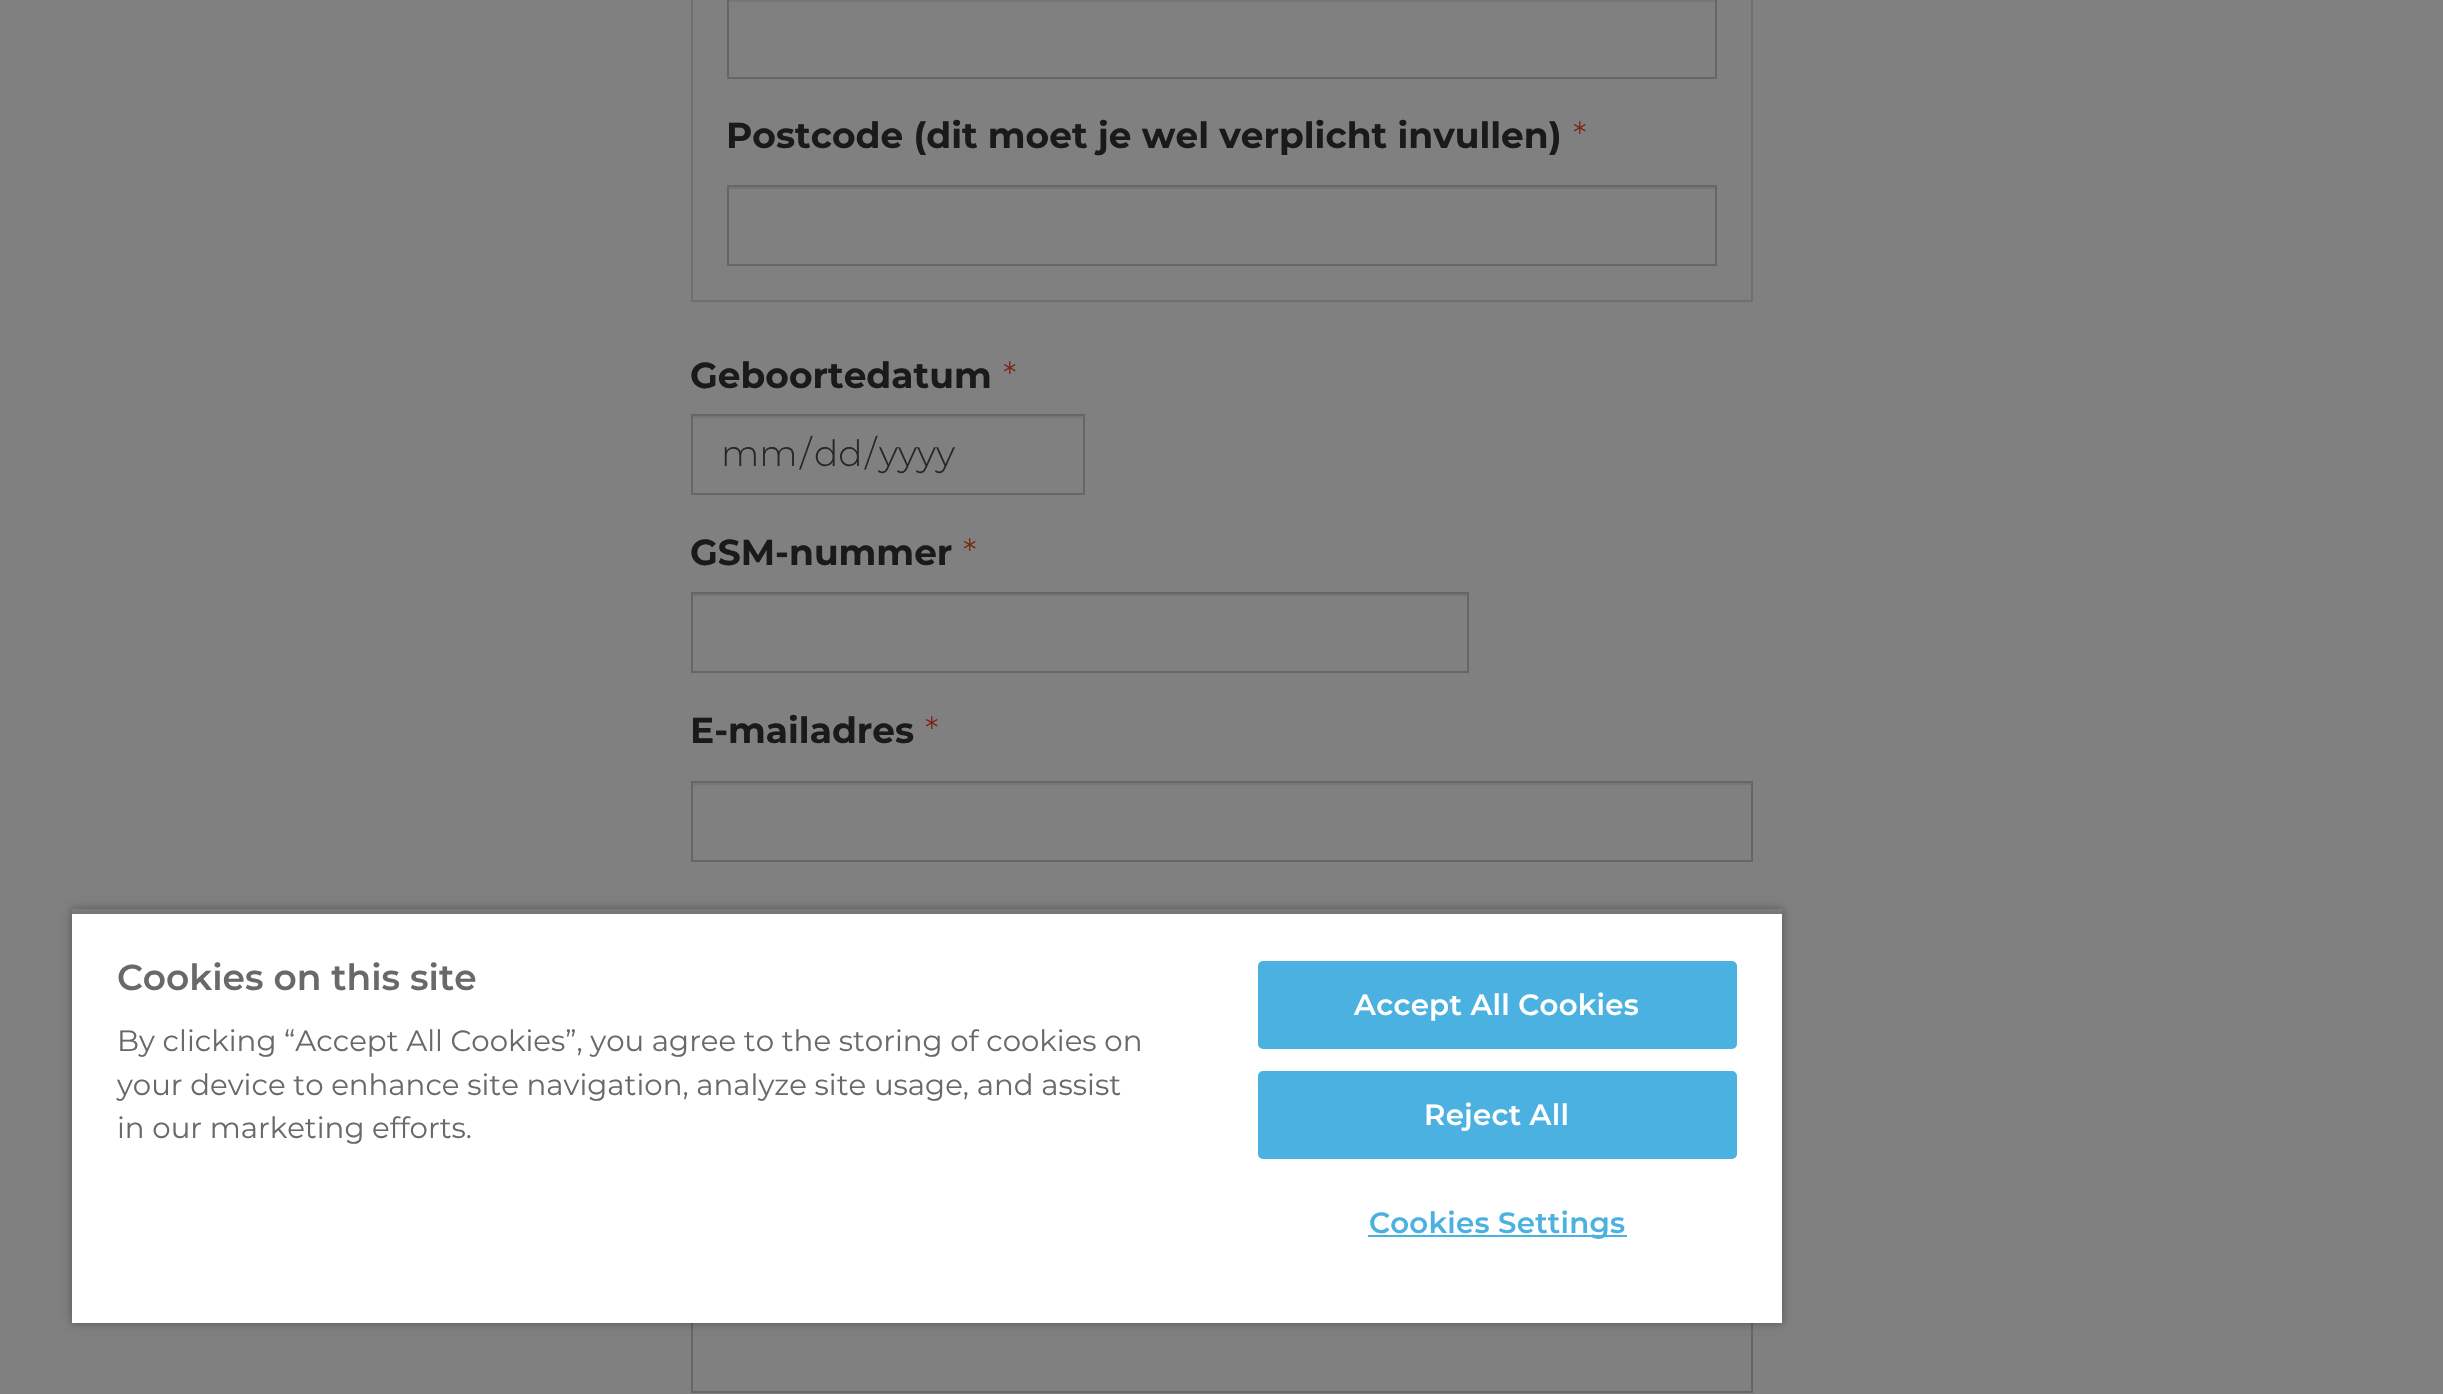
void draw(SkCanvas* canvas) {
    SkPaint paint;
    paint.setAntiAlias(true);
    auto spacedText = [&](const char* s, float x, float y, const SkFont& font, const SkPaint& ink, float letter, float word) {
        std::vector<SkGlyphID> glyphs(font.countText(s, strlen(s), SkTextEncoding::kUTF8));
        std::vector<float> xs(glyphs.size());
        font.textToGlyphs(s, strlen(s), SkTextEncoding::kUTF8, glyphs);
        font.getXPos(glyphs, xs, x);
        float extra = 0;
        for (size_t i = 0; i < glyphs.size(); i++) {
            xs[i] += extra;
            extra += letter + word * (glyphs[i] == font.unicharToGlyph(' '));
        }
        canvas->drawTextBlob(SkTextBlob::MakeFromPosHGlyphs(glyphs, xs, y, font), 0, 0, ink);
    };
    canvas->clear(0xFF808080);
    paint.setStyle(SkPaint::kStroke_Style);
    paint.setStrokeWidth(2);
    paint.setColor(0xFF6F6F6F);
    canvas->drawRect(SkRect::MakeXYWH(692, -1, 1060, 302), paint);
    paint.setStyle(SkPaint::kFill_Style);
    paint.setColor(0xFF767676);
    canvas->drawRect(SkRect::MakeXYWH(729, 0, 986, 2), paint);
    paint.setStyle(SkPaint::kStroke_Style);
    paint.setColor(0xFF666666);
    canvas->drawRect(SkRect::MakeXYWH(728, -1, 988, 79), paint);
    SkFont font1(fontMgr->matchFamilyStyle("Montserrat", SkFontStyle::Bold()), 36);
    font1.setSubpixel(true);
    paint.setStyle(SkPaint::kFill_Style);
    paint.setColor(0xFF1A1A1A);
    canvas->drawString("Postcode (dit moet je wel verplicht invullen)", 726, 148, font1, paint);
    SkFont font2(fontMgr->matchFamilyStyle("Montserrat", SkFontStyle(300, SkFontStyle::kNormal_Width, SkFontStyle::kUpright_Slant)), 36);
    font2.setSubpixel(true);
    paint.setColor(0xFF782712);
    canvas->drawString("*", 1573, 148, font2, paint);
    paint.setColor(0xFF767676);
    canvas->drawRect(SkRect::MakeXYWH(729, 187, 986, 2), paint);
    paint.setStyle(SkPaint::kStroke_Style);
    paint.setColor(0xFF666666);
    canvas->drawRect(SkRect::MakeXYWH(728, 186, 988, 79), paint);
    paint.setStyle(SkPaint::kFill_Style);
    paint.setColor(0xFF1A1A1A);
    canvas->drawString("Geboortedatum", 690, 388, font1, paint);
    paint.setColor(0xFF782712);
    canvas->drawString("*", 1003, 388, font2, paint);
    paint.setColor(0xFF767676);
    canvas->drawRect(SkRect::MakeXYWH(693, 416, 389, 2), paint);
    paint.setStyle(SkPaint::kStroke_Style);
    paint.setColor(0xFF666666);
    canvas->drawRect(SkRect::MakeXYWH(692, 415, 392, 79), paint);
    paint.setStyle(SkPaint::kFill_Style);
    paint.setColor(0xFF272727);
    canvas->drawString("mm", 721, 466, font2, paint);
    canvas->drawString("/", 800, 466, font2, paint);
    canvas->drawString("dd", 814, 466, font2, paint);
    canvas->drawString("/", 865, 466, font2, paint);
    canvas->drawString("yyyy", 879, 466, font2, paint);
    paint.setColor(0xFF1A1A1A);
    canvas->drawString("GSM-nummer", 690, 565, font1, paint);
    paint.setColor(0xFF782712);
    canvas->drawString("*", 963, 565, font2, paint);
    paint.setColor(0xFF767676);
    canvas->drawRect(SkRect::MakeXYWH(693, 594, 774, 2), paint);
    paint.setStyle(SkPaint::kStroke_Style);
    paint.setColor(0xFF666666);
    canvas->drawRect(SkRect::MakeXYWH(692, 593, 776, 79), paint);
    paint.setStyle(SkPaint::kFill_Style);
    paint.setColor(0xFF1A1A1A);
    canvas->drawString("E-mailadres", 690, 743, font1, paint);
    paint.setColor(0xFF782712);
    canvas->drawString("*", 925, 743, font2, paint);
    paint.setColor(0xFF767676);
    canvas->drawRect(SkRect::MakeXYWH(693, 783, 1058, 2), paint);
    paint.setStyle(SkPaint::kStroke_Style);
    paint.setColor(0xFF666666);
    canvas->drawRect(SkRect::MakeXYWH(692, 782, 1060, 79), paint);
    canvas->drawRect(SkRect::MakeXYWH(692, 1313, 1060, 79), paint);
    canvas->save();
    canvas->clipPath(SkPathBuilder(SkPathFillType::kEvenOdd).moveTo(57, 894).lineTo(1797, 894).lineTo(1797, 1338).lineTo(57, 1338).close().moveTo(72, 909).lineTo(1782, 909).lineTo(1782, 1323).lineTo(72, 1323).close().detach(), true);
    paint.setStyle(SkPaint::kFill_Style);
    paint.setColor(0x59000000);
    paint.setMaskFilter(SkMaskFilter::MakeBlur(kNormal_SkBlurStyle, 4.5f));
    canvas->drawRect(SkRect::MakeXYWH(72, 909, 1710, 414), paint);
    paint.setMaskFilter(nullptr);
    canvas->restore();
    canvas->save();
    canvas->clipRect(SkRect::MakeXYWH(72, 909, 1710, 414));
    paint.setColor(0x33000000);
    paint.setMaskFilter(SkMaskFilter::MakeBlur(kNormal_SkBlurStyle, 4.5f));
    canvas->drawRect(SkRect::MakeXYWH(72, 914, 1710, 409), paint);
    paint.setMaskFilter(nullptr);
    canvas->restore();
    paint.setColor(0xFFFFFFFF);
    canvas->drawRect(SkRect::MakeXYWH(72, 914, 1710, 409), paint);
    SkFont font3(fontMgr->matchFamilyStyle("Montserrat", SkFontStyle(600, SkFontStyle::kNormal_Width, SkFontStyle::kUpright_Slant)), 36);
    font3.setSubpixel(true);
    paint.setColor(0xFF696969);
    canvas->drawString("Cookies on this site", 117, 990, font3, paint);
    SkFont font4(fontMgr->matchFamilyStyle("Montserrat", SkFontStyle::Normal()), 29.25f);
    font4.setSubpixel(true);
    canvas->drawString("By clicking “Accept All Cookies”, you agree to the storing of cookies on", 117, 1051, font4, paint);
    canvas->drawString("your device to enhance site navigation, analyze site usage, and assist", 117, 1095, font4, paint);
    canvas->drawString("in our marketing efforts.", 117, 1138, font4, paint);
    paint.setColor(0xFF4BB1E0);
    canvas->drawRoundRect(SkRect::MakeXYWH(1259, 962, 477, 86), 4, 4, paint);
    paint.setStyle(SkPaint::kStroke_Style);
    canvas->drawRoundRect(SkRect::MakeXYWH(1259, 962, 477, 86), 4, 4, paint);
    SkFont font5(fontMgr->matchFamilyStyle("Montserrat", SkFontStyle(600, SkFontStyle::kNormal_Width, SkFontStyle::kUpright_Slant)), 29.25f);
    font5.setSubpixel(true);
    paint.setStyle(SkPaint::kFill_Style);
    paint.setColor(0xFFFFFFFF);
    spacedText("Accept All Cookies", 1354, 1015, font5, paint, 0.25f, 0);
    paint.setColor(0xFF4BB1E0);
    canvas->drawRoundRect(SkRect::MakeXYWH(1259, 1072, 477, 86), 4, 4, paint);
    paint.setStyle(SkPaint::kStroke_Style);
    canvas->drawRoundRect(SkRect::MakeXYWH(1259, 1072, 477, 86), 4, 4, paint);
    paint.setStyle(SkPaint::kFill_Style);
    paint.setColor(0xFFFFFFFF);
    spacedText("Reject All", 1424, 1125, font5, paint, 0.25f, 0);
    paint.setColor(0xFF4BB1E0);
    canvas->drawRect(SkRect::MakeXYWH(1368, 1235, 259, 2), paint);
    spacedText("Cookies Settings", 1369, 1233, font5, paint, 0.25f, 0);
}
